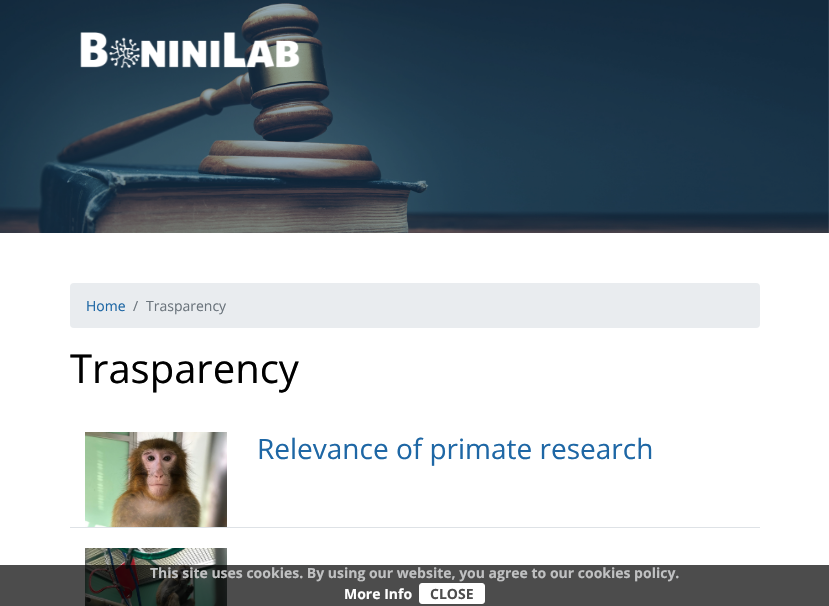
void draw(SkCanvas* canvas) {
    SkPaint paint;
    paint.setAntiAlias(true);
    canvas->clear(0xFFFFFFFF);
    canvas->drawImageRect(SkImages::DeferredFromEncodedData(SkData::MakeFromFileName("img1.png")), SkRect::MakeXYWH(0, 0, 829, 233), SkSamplingOptions());
    canvas->drawImageRect(SkImages::DeferredFromEncodedData(SkData::MakeFromFileName("img2.png")), SkRect::MakeXYWH(80, 32, 220, 36), SkSamplingOptions());
    paint.setColor(0xFFE9ECEF);
    canvas->drawRoundRect(SkRect::MakeXYWH(70, 283, 690, 45), 4, 4, paint);
    SkFont font1(fontMgr->matchFamilyStyle("Open Sans", SkFontStyle::Normal()), 14);
    font1.setSubpixel(true);
    paint.setColor(0xFF1E67A5);
    canvas->drawString("Home", 86, 311, font1, paint);
    paint.setColor(0xFF6C757D);
    canvas->drawString("/", 133, 311, font1, paint);
    canvas->drawString("Trasparency", 146, 311, font1, paint);
    SkFont font2(fontMgr->matchFamilyStyle("Open Sans", SkFontStyle::Normal()), 40);
    font2.setSubpixel(true);
    paint.setColor(0xFF000000);
    canvas->drawString("Trasparency", 70, 383, font2, paint);
    paint.setColor(0xFFDEE2E6);
    canvas->drawRect(SkRect::MakeXYWH(70, 527, 690, 1), paint);
    canvas->drawImageRect(SkImages::DeferredFromEncodedData(SkData::MakeFromFileName("img3.png")), SkRect::MakeXYWH(85, 432, 142, 95), SkSamplingOptions());
    SkFont font3(fontMgr->matchFamilyStyle("Open Sans", SkFontStyle::Normal()), 28);
    font3.setSubpixel(true);
    paint.setColor(0xFF1E67A5);
    canvas->drawString("Relevance of primate research", 257, 459, font3, paint);
    canvas->drawImageRect(SkImages::DeferredFromEncodedData(SkData::MakeFromFileName("img4.png")), SkRect::MakeXYWH(85, 548, 142, 58), SkSamplingOptions());
    paint.setColor(0xB3000000);
    canvas->drawRect(SkRect::MakeXYWH(0, 565, 829, 41), paint);
    SkFont font4(fontMgr->matchFamilyStyle("Open Sans", SkFontStyle::Bold()), 14);
    font4.setSubpixel(true);
    paint.setColor(0xFFC0C1C2);
    canvas->drawString("This site uses cookies. By using our website, you agree to our cookies policy.", 150, 578, font4, paint);
    paint.setColor(0xFFFFFFFF);
    canvas->drawString("More Info", 344, 599, font4, paint);
    canvas->drawRoundRect(SkRect::MakeXYWH(419.5f, 583.5f, 65, 20), 2.5f, 2.5f, paint);
    paint.setStyle(SkPaint::kStroke_Style);
    paint.setStrokeWidth(1);
    canvas->drawRoundRect(SkRect::MakeXYWH(419.5f, 583.5f, 65, 20), 2.5f, 2.5f, paint);
    paint.setStyle(SkPaint::kFill_Style);
    paint.setColor(0xFF4D4D4D);
    canvas->drawString("CLOSE", 430, 599, font4, paint);
}
